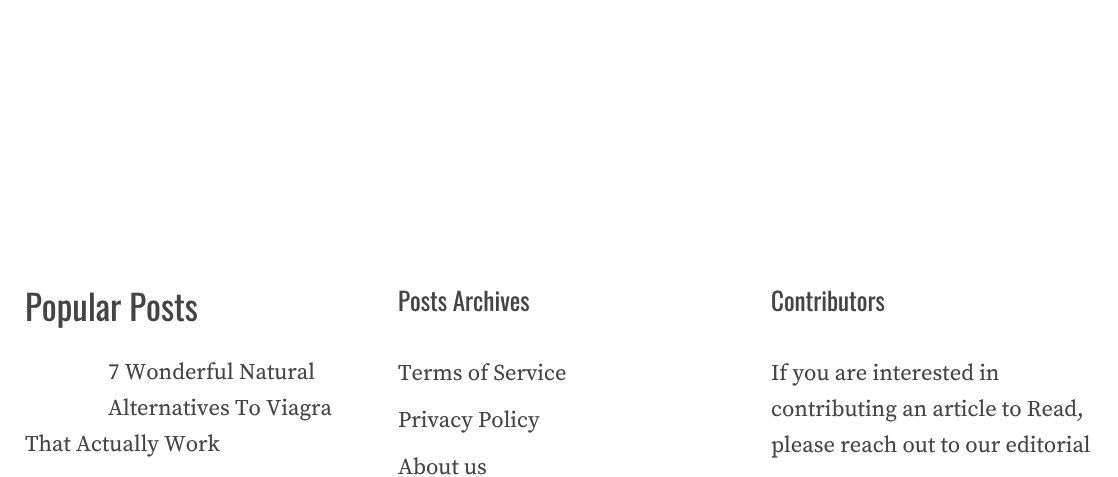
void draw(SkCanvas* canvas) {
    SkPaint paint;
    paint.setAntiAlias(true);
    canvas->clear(0xFFFFFFFF);
    SkFont font1(fontMgr->matchFamilyStyle("Oswald", SkFontStyle::Normal()), 35);
    font1.setSubpixel(true);
    paint.setColor(0xFF444444);
    canvas->drawString("Popular Posts", 25, 321, font1, paint);
    SkFont font2(fontMgr->matchFamilyStyle("Source Serif Pro", SkFontStyle::Normal()), 22.5f);
    font2.setSubpixel(true);
    canvas->drawString("7 Wonderful Natural", 108, 379, font2, paint);
    canvas->drawString("Alternatives To Viagra", 108, 415, font2, paint);
    canvas->drawString("That Actually Work", 25, 451, font2, paint);
    SkFont font3(fontMgr->matchFamilyStyle("Oswald", SkFontStyle::Normal()), 25);
    font3.setSubpixel(true);
    canvas->drawString("Posts Archives", 398, 311, font3, paint);
    canvas->drawString("Terms of Service", 398, 380, font2, paint);
    canvas->drawString("Privacy Policy", 398, 427, font2, paint);
    canvas->drawString("About us", 398, 474, font2, paint);
    canvas->drawString("Contributors", 771, 311, font3, paint);
    canvas->drawString("If you are interested in", 771, 380, font2, paint);
    canvas->drawString("contributing an article to Read,", 771, 416, font2, paint);
    canvas->drawString("please reach out to our editorial", 771, 452, font2, paint);
}
